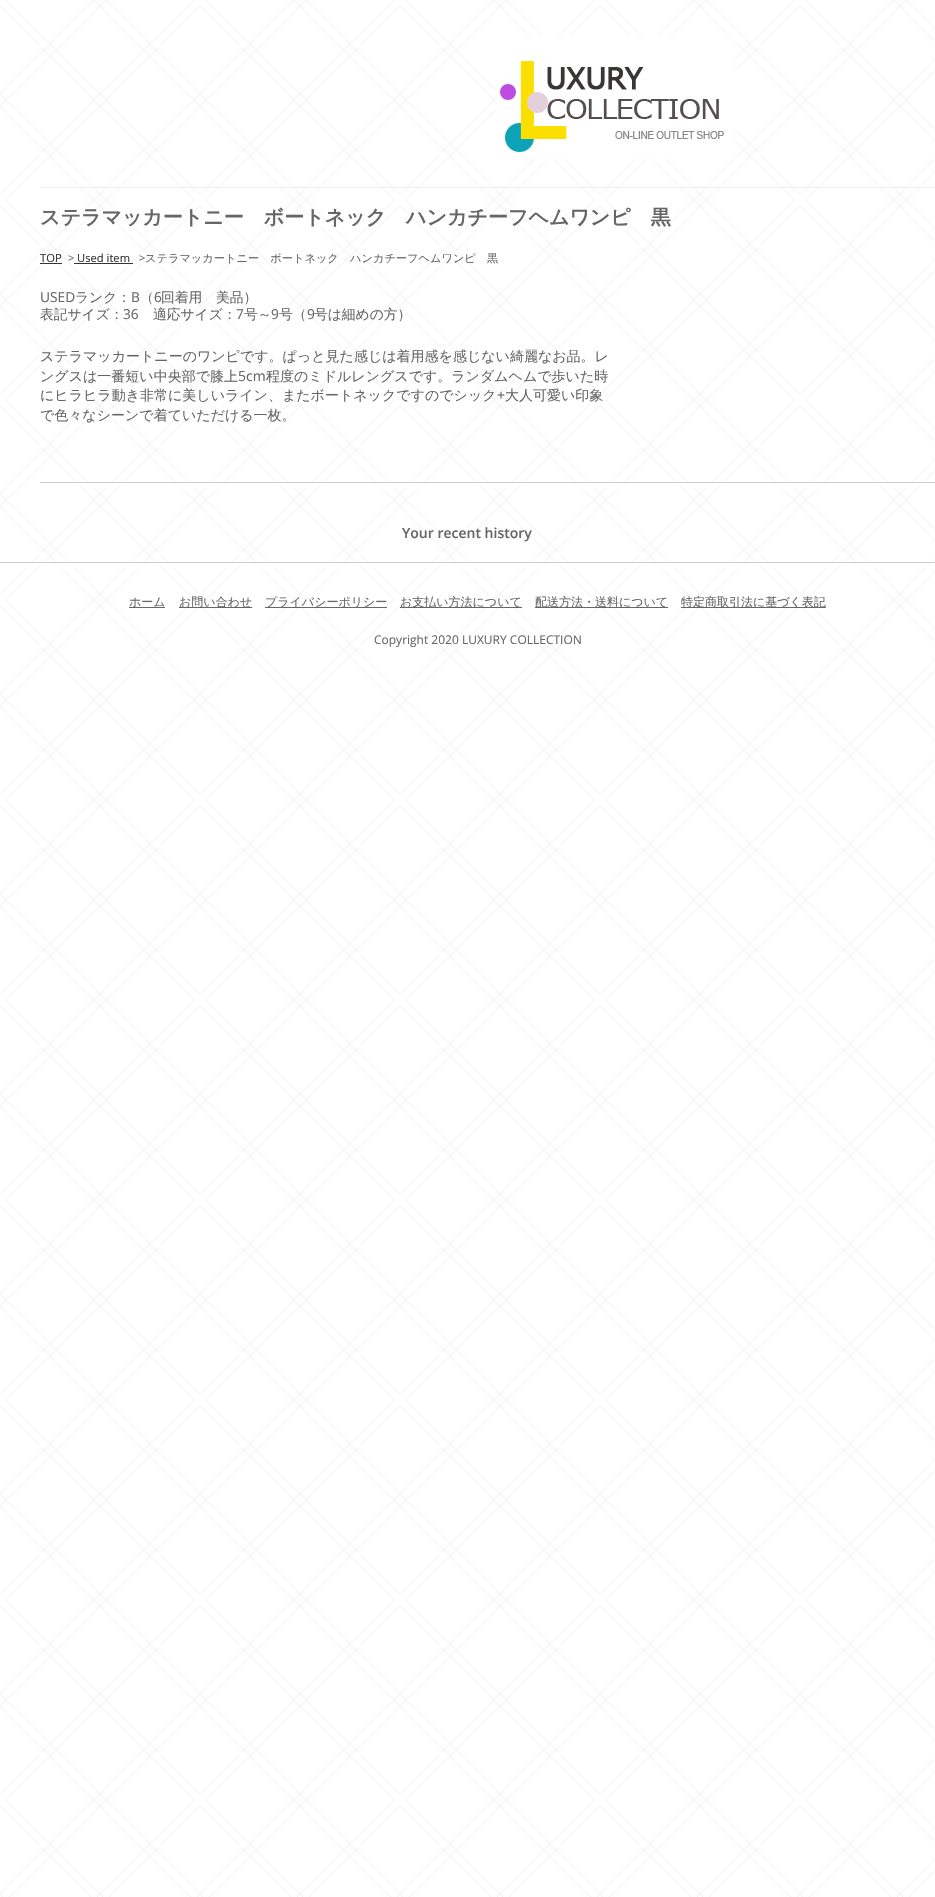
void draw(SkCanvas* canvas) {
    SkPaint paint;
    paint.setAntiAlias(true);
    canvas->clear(0xFFFFFFFF);
    canvas->drawImageRect(SkImages::DeferredFromEncodedData(SkData::MakeFromFileName("img1.png")), SkRect::MakeXYWH(0, 0, 935, 1897), SkSamplingOptions());
    canvas->drawImageRect(SkImages::DeferredFromEncodedData(SkData::MakeFromFileName("img2.png")), SkRect::MakeXYWH(497, 36, 237, 123), SkSamplingOptions());
    paint.setColor(0xFFEEEEEE);
    canvas->drawRect(SkRect::MakeXYWH(40, 187, 895, 1), paint);
    SkFont font1(fontMgr->matchFamilyStyle("WenQuanYi Zen Hei", SkFontStyle::Bold()), 20);
    font1.setSubpixel(true);
    paint.setColor(0xFF666666);
    canvas->drawString("ステラマッカートニー　ボートネック　ハンカチーフヘムワンピ　黒", 40, 224, font1, paint);
    paint.setColor(0xFFCCCCCC);
    canvas->drawRect(SkRect::MakeXYWH(40, 482, 895, 1), paint);
    SkFont font2(fontMgr->matchFamilyStyle("Open Sans", SkFontStyle::Normal()), 11.2f);
    font2.setSubpixel(true);
    paint.setColor(0xFF333333);
    canvas->drawString("TOP", 40, 262, font2, paint);
    canvas->drawRect(SkRect::MakeXYWH(40, 263, 22, 1), paint);
    paint.setColor(0xFF666666);
    canvas->drawString(">", 68, 262, font2, paint);
    paint.setColor(0xFF333333);
    canvas->drawString("Used item", 77, 262, font2, paint);
    canvas->drawRect(SkRect::MakeXYWH(74, 263, 59, 1), paint);
    paint.setColor(0xFF666666);
    canvas->drawString(">", 139, 262, font2, paint);
    SkFont font3(fontMgr->matchFamilyStyle("WenQuanYi Zen Hei", SkFontStyle(500, SkFontStyle::kNormal_Width, SkFontStyle::kUpright_Slant)), 11.2f);
    font3.setSubpixel(true);
    canvas->drawString("ステラマッカートニー　ボートネック　ハンカチーフヘムワンピ　黒", 145, 262, font3, paint);
    SkFont font4(fontMgr->matchFamilyStyle("Open Sans", SkFontStyle::Normal()), 13.75f);
    font4.setSubpixel(true);
    canvas->drawString("USED", 40, 302, font4, paint);
    SkFont font5(fontMgr->matchFamilyStyle("WenQuanYi Zen Hei", SkFontStyle(500, SkFontStyle::kNormal_Width, SkFontStyle::kUpright_Slant)), 13.75f);
    font5.setSubpixel(true);
    canvas->drawString("ランク：", 75, 302, font5, paint);
    canvas->drawString("B", 131, 302, font4, paint);
    canvas->drawString("（", 140, 302, font5, paint);
    canvas->drawString("6", 154, 302, font4, paint);
    canvas->drawString("回着用　美品）", 161, 302, font5, paint);
    canvas->drawString("表記サイズ：", 40, 319, font5, paint);
    canvas->drawString("36", 123, 319, font4, paint);
    canvas->drawString("適応サイズ：", 153, 319, font5, paint);
    canvas->drawString("7", 236, 319, font4, paint);
    canvas->drawString("号～", 244, 319, font5, paint);
    canvas->drawString("9", 271, 319, font4, paint);
    canvas->drawString("号（", 279, 319, font5, paint);
    canvas->drawString("9", 307, 319, font4, paint);
    canvas->drawString("号は細めの方）", 314, 319, font5, paint);
    SkFont font6(fontMgr->matchFamilyStyle("WenQuanYi Zen Hei", SkFontStyle(500, SkFontStyle::kNormal_Width, SkFontStyle::kUpright_Slant)), 14);
    font6.setSubpixel(true);
    canvas->drawString("ステラマッカートニーのワンピです。ぱっと見た感じは着用感を感じない綺麗なお品。レ", 40, 361, font6, paint);
    canvas->drawString("ングスは一番短い中央部で膝上", 40, 381, font6, paint);
    SkFont font7(fontMgr->matchFamilyStyle("Open Sans", SkFontStyle::Normal()), 14);
    font7.setSubpixel(true);
    canvas->drawString("5cm", 238, 381, font7, paint);
    canvas->drawString("程度のミドルレングスです。ランダムヘムで歩いた時", 266, 381, font6, paint);
    canvas->drawString("にヒラヒラ動き非常に美しいライン、またボートネックですのでシック", 40, 400, font6, paint);
    canvas->drawString("+", 497, 400, font7, paint);
    canvas->drawString("大人可愛い印象", 505, 400, font6, paint);
    canvas->drawString("で色々なシーンで着ていただける一枚。", 40, 420, font6, paint);
    SkFont font8(fontMgr->matchFamilyStyle("Open Sans", SkFontStyle(600, SkFontStyle::kNormal_Width, SkFontStyle::kUpright_Slant)), 14);
    font8.setSubpixel(true);
    canvas->drawString("Your recent history", 402, 538, font8, paint);
    paint.setColor(0xFFCCCCCC);
    canvas->drawRect(SkRect::MakeXYWH(0, 562, 935, 1), paint);
    paint.setColor(0xFF666666);
    canvas->drawRect(SkRect::MakeXYWH(129, 607, 36, 1), paint);
    SkFont font9(fontMgr->matchFamilyStyle("WenQuanYi Zen Hei", SkFontStyle(500, SkFontStyle::kNormal_Width, SkFontStyle::kUpright_Slant)), 12);
    font9.setSubpixel(true);
    canvas->drawString("ホーム", 129, 606, font9, paint);
    canvas->drawRect(SkRect::MakeXYWH(179, 607, 73, 1), paint);
    canvas->drawString("お問い合わせ", 179, 606, font9, paint);
    canvas->drawRect(SkRect::MakeXYWH(265, 607, 122, 1), paint);
    canvas->drawString("プライバシーポリシー", 265, 606, font9, paint);
    canvas->drawRect(SkRect::MakeXYWH(400, 607, 122, 1), paint);
    canvas->drawString("お支払い方法について", 400, 606, font9, paint);
    canvas->drawRect(SkRect::MakeXYWH(535, 607, 133, 1), paint);
    canvas->drawString("配送方法・送料について", 535, 606, font9, paint);
    canvas->drawRect(SkRect::MakeXYWH(681, 607, 145, 1), paint);
    canvas->drawString("特定商取引法に基づく表記", 681, 606, font9, paint);
    SkFont font10(fontMgr->matchFamilyStyle("Open Sans", SkFontStyle::Normal()), 12);
    font10.setSubpixel(true);
    canvas->drawString("Copyright 2020 LUXURY COLLECTION", 374, 644, font10, paint);
}
